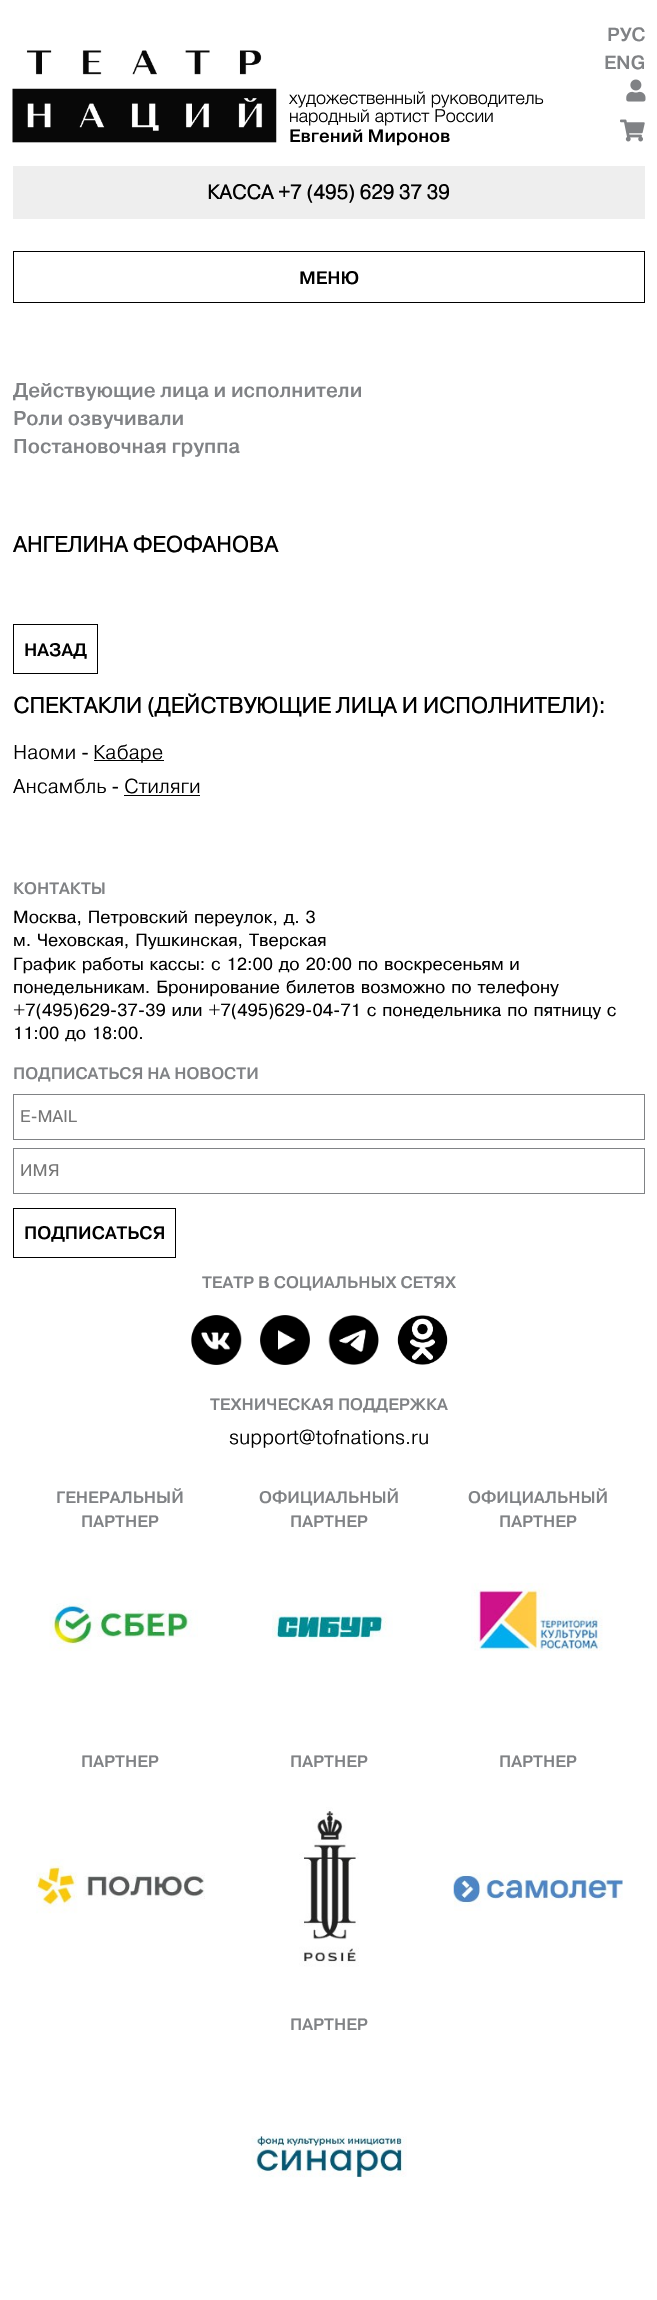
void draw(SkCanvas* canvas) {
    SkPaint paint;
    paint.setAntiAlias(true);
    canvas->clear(0xFFFFFFFF);
    SkFont font1(fontMgr->matchFamilyStyle("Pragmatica", SkFontStyle(500, SkFontStyle::kNormal_Width, SkFontStyle::kUpright_Slant)), 19);
    font1.setSubpixel(true);
    paint.setColor(0xFF808285);
    canvas->drawString("РУС", 607, 41, font1, paint);
    canvas->drawString("ENG", 604, 69, font1, paint);
    canvas->drawImageRect(SkImages::DeferredFromEncodedData(SkData::MakeFromFileName("img1.png")), SkRect::MakeXYWH(626, 79, 20, 23), SkSamplingOptions());
    canvas->drawImageRect(SkImages::DeferredFromEncodedData(SkData::MakeFromFileName("img2.png")), SkRect::MakeXYWH(620, 119, 25, 23), SkSamplingOptions());
    canvas->drawImageRect(SkImages::DeferredFromEncodedData(SkData::MakeFromFileName("img3.png")), SkRect::MakeXYWH(12, 50, 265, 93), SkSamplingOptions());
    SkFont font2(fontMgr->matchFamilyStyle("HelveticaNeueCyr", SkFontStyle(300, SkFontStyle::kNormal_Width, SkFontStyle::kUpright_Slant)), 18);
    font2.setSubpixel(true);
    paint.setColor(0xFF000000);
    canvas->drawString("художественный руководитель", 289, 104, font2, paint);
    canvas->drawString("народный артист России", 289, 122, font2, paint);
    SkFont font3(fontMgr->matchFamilyStyle("Pragmatica", SkFontStyle(500, SkFontStyle::kNormal_Width, SkFontStyle::kUpright_Slant)), 18);
    font3.setSubpixel(true);
    canvas->drawString("Евгений Миронов", 289, 142, font3, paint);
    paint.setColor(0xFFEEEEEE);
    canvas->drawRect(SkRect::MakeXYWH(13, 166, 632, 53), paint);
    SkFont font4(fontMgr->matchFamilyStyle("Pragmatica", SkFontStyle::Bold()), 20);
    font4.setSubpixel(true);
    paint.setColor(0xFF000000);
    canvas->drawString("КАССА +7 (495) 629 37 39", 207, 199, font4, paint);
    paint.setStyle(SkPaint::kStroke_Style);
    paint.setStrokeWidth(1);
    canvas->drawRect(SkRect::MakeXYWH(13.5f, 251.5f, 631, 51), paint);
    paint.setStyle(SkPaint::kFill_Style);
    canvas->drawString("МЕНЮ", 299, 284, font3, paint);
    SkFont font5(fontMgr->matchFamilyStyle("Pragmatica", SkFontStyle(500, SkFontStyle::kNormal_Width, SkFontStyle::kUpright_Slant)), 20);
    font5.setSubpixel(true);
    paint.setColor(0xFF808285);
    canvas->drawString("Действующие лица и исполнители", 13, 397, font5, paint);
    canvas->drawString("Роли озвучивали", 13, 425, font5, paint);
    canvas->drawString("Постановочная группа", 13, 453, font5, paint);
    SkFont font6(fontMgr->matchFamilyStyle("Pragmatica", SkFontStyle::Bold()), 22);
    font6.setSubpixel(true);
    paint.setColor(0xFF000000);
    canvas->drawString("АНГЕЛИНА ФЕОФАНОВА", 13, 552, font6, paint);
    paint.setStyle(SkPaint::kStroke_Style);
    canvas->drawRect(SkRect::MakeXYWH(13.5f, 624.5f, 84, 49), paint);
    paint.setStyle(SkPaint::kFill_Style);
    canvas->drawString("НАЗАД", 24, 656, font3, paint);
    canvas->drawString("СПЕКТАКЛИ (ДЕЙСТВУЮЩИЕ ЛИЦА И ИСПОЛНИТЕЛИ):", 13, 713, font6, paint);
    SkFont font7(fontMgr->matchFamilyStyle("Pragmatica", SkFontStyle(300, SkFontStyle::kNormal_Width, SkFontStyle::kUpright_Slant)), 20);
    font7.setSubpixel(true);
    canvas->drawString("Наоми -", 13, 759, font7, paint);
    canvas->drawRect(SkRect::MakeXYWH(94, 760, 70, 1), paint);
    canvas->drawString("Кабаре", 93, 759, font7, paint);
    canvas->drawString("Ансамбль - Стиляги", 13, 793, font7, paint);
    canvas->drawRect(SkRect::MakeXYWH(124, 795, 76, 1), paint);
    SkFont font8(fontMgr->matchFamilyStyle("Pragmatica", SkFontStyle(500, SkFontStyle::kNormal_Width, SkFontStyle::kUpright_Slant)), 16.6f);
    font8.setSubpixel(true);
    paint.setColor(0xFF808285);
    canvas->drawString("КОНТАКТЫ", 13, 894, font8, paint);
    SkFont font9(fontMgr->matchFamilyStyle("Pragmatica", SkFontStyle::Normal()), 16.6f);
    font9.setSubpixel(true);
    paint.setColor(0xFF000000);
    canvas->drawString("Москва, Петровский переулок, д. 3", 13, 923, font9, paint);
    canvas->drawString("м. Чеховская, Пушкинская, Тверская", 13, 946, font9, paint);
    canvas->drawString("График работы кассы: с 12:00 до 20:00 по воскресеньям и", 13, 970, font9, paint);
    canvas->drawString("понедельникам. Бронирование билетов возможно по телефону", 13, 993, font9, paint);
    canvas->drawString("+7(495)629-37-39 или +7(495)629-04-71 с понедельника по пятницу с", 13, 1016, font9, paint);
    canvas->drawString("11:00 до 18:00.", 13, 1039, font9, paint);
    paint.setColor(0xFF808285);
    canvas->drawString("ПОДПИСАТЬСЯ НА НОВОСТИ", 13, 1079, font8, paint);
    paint.setStyle(SkPaint::kStroke_Style);
    canvas->drawRect(SkRect::MakeXYWH(13.5f, 1094.5f, 631, 45), paint);
    SkFont font10(fontMgr->matchFamilyStyle("Pragmatica", SkFontStyle::Normal()), 16);
    font10.setSubpixel(true);
    paint.setStyle(SkPaint::kFill_Style);
    paint.setColor(0xFF757575);
    canvas->drawString("E-MAIL", 20, 1122, font10, paint);
    paint.setStyle(SkPaint::kStroke_Style);
    paint.setColor(0xFF808285);
    canvas->drawRect(SkRect::MakeXYWH(13.5f, 1148.5f, 631, 45), paint);
    paint.setStyle(SkPaint::kFill_Style);
    paint.setColor(0xFF757575);
    canvas->drawString("ИМЯ", 20, 1176, font10, paint);
    paint.setStyle(SkPaint::kStroke_Style);
    paint.setColor(0xFF000000);
    canvas->drawRect(SkRect::MakeXYWH(13.5f, 1208.5f, 162, 49), paint);
    paint.setStyle(SkPaint::kFill_Style);
    canvas->drawString("ПОДПИСАТЬСЯ", 24, 1239, font3, paint);
    paint.setColor(0xFF808285);
    canvas->drawString("ТЕАТР В СОЦИАЛЬНЫХ СЕТЯХ", 202, 1288, font8, paint);
    canvas->drawImageRect(SkImages::DeferredFromEncodedData(SkData::MakeFromFileName("img4.png")), SkRect::MakeXYWH(191, 1315, 51, 50), SkSamplingOptions());
    canvas->drawImageRect(SkImages::DeferredFromEncodedData(SkData::MakeFromFileName("img5.png")), SkRect::MakeXYWH(260, 1315, 50, 50), SkSamplingOptions());
    canvas->drawImageRect(SkImages::DeferredFromEncodedData(SkData::MakeFromFileName("img6.png")), SkRect::MakeXYWH(328, 1315, 51, 50), SkSamplingOptions());
    canvas->drawImageRect(SkImages::DeferredFromEncodedData(SkData::MakeFromFileName("img7.png")), SkRect::MakeXYWH(397, 1315, 51, 50), SkSamplingOptions());
    canvas->drawString("ТЕХНИЧЕСКАЯ ПОДДЕРЖКА", 210, 1410, font8, paint);
    paint.setColor(0xFF000000);
    canvas->drawString("support@tofnations.ru", 229, 1444, font7, paint);
    paint.setColor(0xFF808285);
    canvas->drawString("ГЕНЕРАЛЬНЫЙ", 56, 1503, font8, paint);
    canvas->drawString("ПАРТНЕР", 81, 1527, font8, paint);
    canvas->drawImageRect(SkImages::DeferredFromEncodedData(SkData::MakeFromFileName("img8.png")), SkRect::MakeXYWH(49, 1596, 149, 55), SkSamplingOptions());
    canvas->drawString("ОФИЦИАЛЬНЫЙ", 259, 1503, font8, paint);
    canvas->drawString("ПАРТНЕР", 290, 1527, font8, paint);
    canvas->drawImageRect(SkImages::DeferredFromEncodedData(SkData::MakeFromFileName("img9.png")), SkRect::MakeXYWH(272, 1610, 121, 32), SkSamplingOptions());
    canvas->drawString("ОФИЦИАЛЬНЫЙ", 468, 1503, font8, paint);
    canvas->drawString("ПАРТНЕР", 499, 1527, font8, paint);
    canvas->drawImageRect(SkImages::DeferredFromEncodedData(SkData::MakeFromFileName("img10.png")), SkRect::MakeXYWH(471, 1583, 132, 68), SkSamplingOptions());
    canvas->drawString("ПАРТНЕР", 81, 1767, font8, paint);
    canvas->drawImageRect(SkImages::DeferredFromEncodedData(SkData::MakeFromFileName("img11.png")), SkRect::MakeXYWH(36, 1859, 169, 55), SkSamplingOptions());
    canvas->drawString("ПАРТНЕР", 290, 1767, font8, paint);
    canvas->drawImageRect(SkImages::DeferredFromEncodedData(SkData::MakeFromFileName("img12.png")), SkRect::MakeXYWH(299, 1807, 60, 160), SkSamplingOptions());
    canvas->drawString("ПАРТНЕР", 499, 1767, font8, paint);
    canvas->drawImageRect(SkImages::DeferredFromEncodedData(SkData::MakeFromFileName("img13.png")), SkRect::MakeXYWH(453, 1872, 170, 39), SkSamplingOptions());
    canvas->drawString("ПАРТНЕР", 290, 2030, font8, paint);
    canvas->drawImageRect(SkImages::DeferredFromEncodedData(SkData::MakeFromFileName("img14.png")), SkRect::MakeXYWH(251, 2136, 156, 42), SkSamplingOptions());
}
